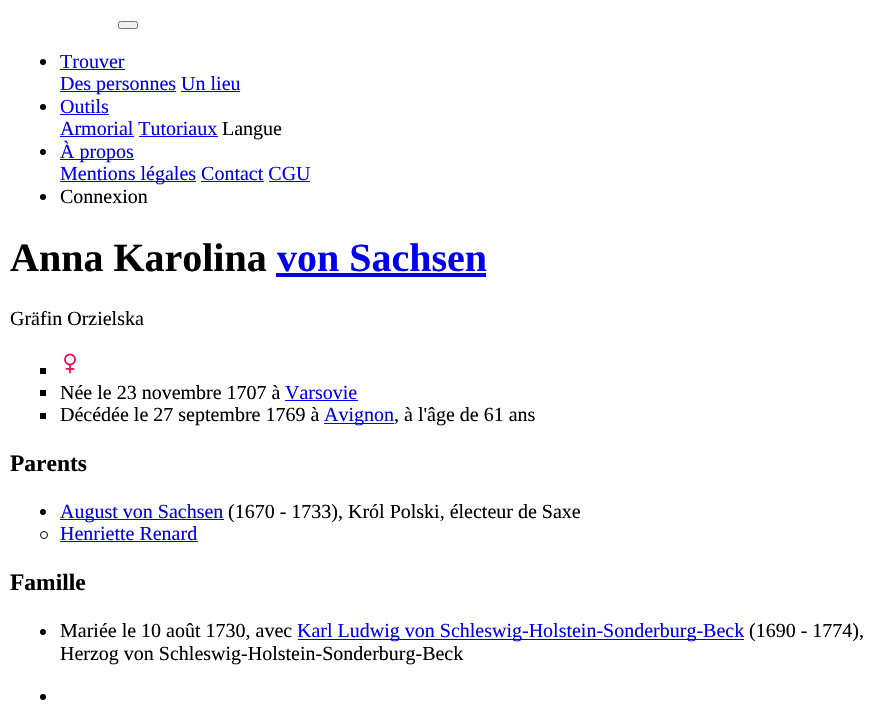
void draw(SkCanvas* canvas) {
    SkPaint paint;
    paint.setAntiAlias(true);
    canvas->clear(0xFFFFFFFF);
    paint.setColor(0xFFEFEFEF);
    canvas->drawRoundRect(SkRect::MakeXYWH(118.5f, 21.5f, 19, 7), 2, 2, paint);
    paint.setStyle(SkPaint::kStroke_Style);
    paint.setStrokeWidth(1);
    paint.setColor(0xFF767676);
    canvas->drawRoundRect(SkRect::MakeXYWH(118.5f, 21.5f, 19, 7), 2, 2, paint);
    paint.setStyle(SkPaint::kFill_Style);
    paint.setColor(0xFF000000);
    canvas->drawCircle(43, 62, 3, paint);
    SkFont font1(fontMgr->matchFamilyStyle("Liberation Serif", SkFontStyle::Normal()), 20);
    font1.setSubpixel(true);
    paint.setColor(0xFF0000EE);
    canvas->drawString("Trouver", 60, 68, font1, paint);
    canvas->drawRect(SkRect::MakeXYWH(60, 69, 65, 1), paint);
    canvas->drawRect(SkRect::MakeXYWH(60, 91, 116, 1), paint);
    canvas->drawString("Des personnes Un lieu", 60, 90, font1, paint);
    canvas->drawRect(SkRect::MakeXYWH(181, 91, 59, 1), paint);
    paint.setColor(0xFF000000);
    canvas->drawCircle(43, 107, 3, paint);
    paint.setColor(0xFF0000EE);
    canvas->drawString("Outils", 60, 113, font1, paint);
    canvas->drawRect(SkRect::MakeXYWH(60, 114, 49, 1), paint);
    canvas->drawString("Armorial Tutoriaux", 60, 135, font1, paint);
    canvas->drawRect(SkRect::MakeXYWH(60, 136, 74, 1), paint);
    paint.setColor(0xFF000000);
    canvas->drawString("Langue", 222, 135, font1, paint);
    paint.setColor(0xFF0000EE);
    canvas->drawRect(SkRect::MakeXYWH(139, 136, 79, 1), paint);
    paint.setColor(0xFF000000);
    canvas->drawCircle(43, 152, 3, paint);
    paint.setColor(0xFF0000EE);
    canvas->drawRect(SkRect::MakeXYWH(60, 159, 74, 1), paint);
    canvas->drawString("À propos", 60, 158, font1, paint);
    canvas->drawRect(SkRect::MakeXYWH(60, 181, 136, 1), paint);
    canvas->drawString("Mentions légales Contact CGU", 60, 180, font1, paint);
    canvas->drawRect(SkRect::MakeXYWH(201, 181, 63, 1), paint);
    canvas->drawRect(SkRect::MakeXYWH(269, 181, 41, 1), paint);
    paint.setColor(0xFF000000);
    canvas->drawCircle(43, 197, 3, paint);
    canvas->drawString("Connexion", 60, 203, font1, paint);
    SkFont font2(fontMgr->matchFamilyStyle("Liberation Serif", SkFontStyle::Bold()), 40);
    font2.setSubpixel(true);
    canvas->drawString("Anna Karolina", 10, 271, font2, paint);
    paint.setColor(0xFF0000EE);
    canvas->drawString("von Sachsen", 277, 271, font2, paint);
    canvas->drawRect(SkRect::MakeXYWH(276, 273, 210, 4), paint);
    paint.setColor(0xFF000000);
    canvas->drawString("Gräfin Orzielska", 10, 325, font1, paint);
    canvas->drawRect(SkRect::MakeXYWH(40, 368, 6, 6), paint);
    canvas->drawImageRect(SkImages::DeferredFromEncodedData(SkData::MakeFromFileName("img1.png")), SkRect::MakeXYWH(64, 353, 12, 21), SkSamplingOptions());
    canvas->drawRect(SkRect::MakeXYWH(40, 390, 6, 6), paint);
    canvas->drawString("Née le 23 novembre 1707 à", 60, 399, font1, paint);
    paint.setColor(0xFF0000EE);
    canvas->drawString("Varsovie", 285, 399, font1, paint);
    canvas->drawRect(SkRect::MakeXYWH(285, 400, 73, 1), paint);
    paint.setColor(0xFF000000);
    canvas->drawRect(SkRect::MakeXYWH(40, 413, 6, 6), paint);
    canvas->drawString("Décédée le 27 septembre 1769 à", 60, 421, font1, paint);
    paint.setColor(0xFF0000EE);
    canvas->drawRect(SkRect::MakeXYWH(324, 423, 70, 1), paint);
    canvas->drawString("Avignon", 324, 421, font1, paint);
    paint.setColor(0xFF000000);
    canvas->drawString(", à l'âge de 61 ans", 394, 421, font1, paint);
    SkFont font3(fontMgr->matchFamilyStyle("Liberation Serif", SkFontStyle::Bold()), 23.5f);
    font3.setSubpixel(true);
    canvas->drawString("Parents", 10, 471, font3, paint);
    canvas->drawCircle(43, 512, 3, paint);
    paint.setColor(0xFF0000EE);
    canvas->drawRect(SkRect::MakeXYWH(60, 519, 164, 1), paint);
    canvas->drawString("August von Sachsen", 60, 518, font1, paint);
    paint.setColor(0xFF000000);
    canvas->drawString("(1670 - 1733), Król Polski, électeur de Saxe", 228, 518, font1, paint);
    paint.setStyle(SkPaint::kStroke_Style);
    canvas->drawCircle(44, 535, 3.5f, paint);
    paint.setStyle(SkPaint::kFill_Style);
    paint.setColor(0xFF0000EE);
    canvas->drawString("Henriette Renard", 60, 540, font1, paint);
    canvas->drawRect(SkRect::MakeXYWH(60, 541, 138, 1), paint);
    paint.setColor(0xFF000000);
    canvas->drawString("Famille", 10, 590, font3, paint);
    canvas->drawCircle(43, 632, 3, paint);
    canvas->drawString("Mariée le 10 août 1730, avec", 60, 637, font1, paint);
    paint.setColor(0xFF0000EE);
    canvas->drawRect(SkRect::MakeXYWH(298, 639, 446, 1), paint);
    canvas->drawString("Karl Ludwig von Schleswig-Holstein-Sonderburg-Beck", 297, 637, font1, paint);
    paint.setColor(0xFF000000);
    canvas->drawString("(1690 - 1774),", 749, 637, font1, paint);
    canvas->drawString("Herzog von Schleswig-Holstein-Sonderburg-Beck", 60, 660, font1, paint);
    canvas->drawCircle(43, 697, 3, paint);
}
